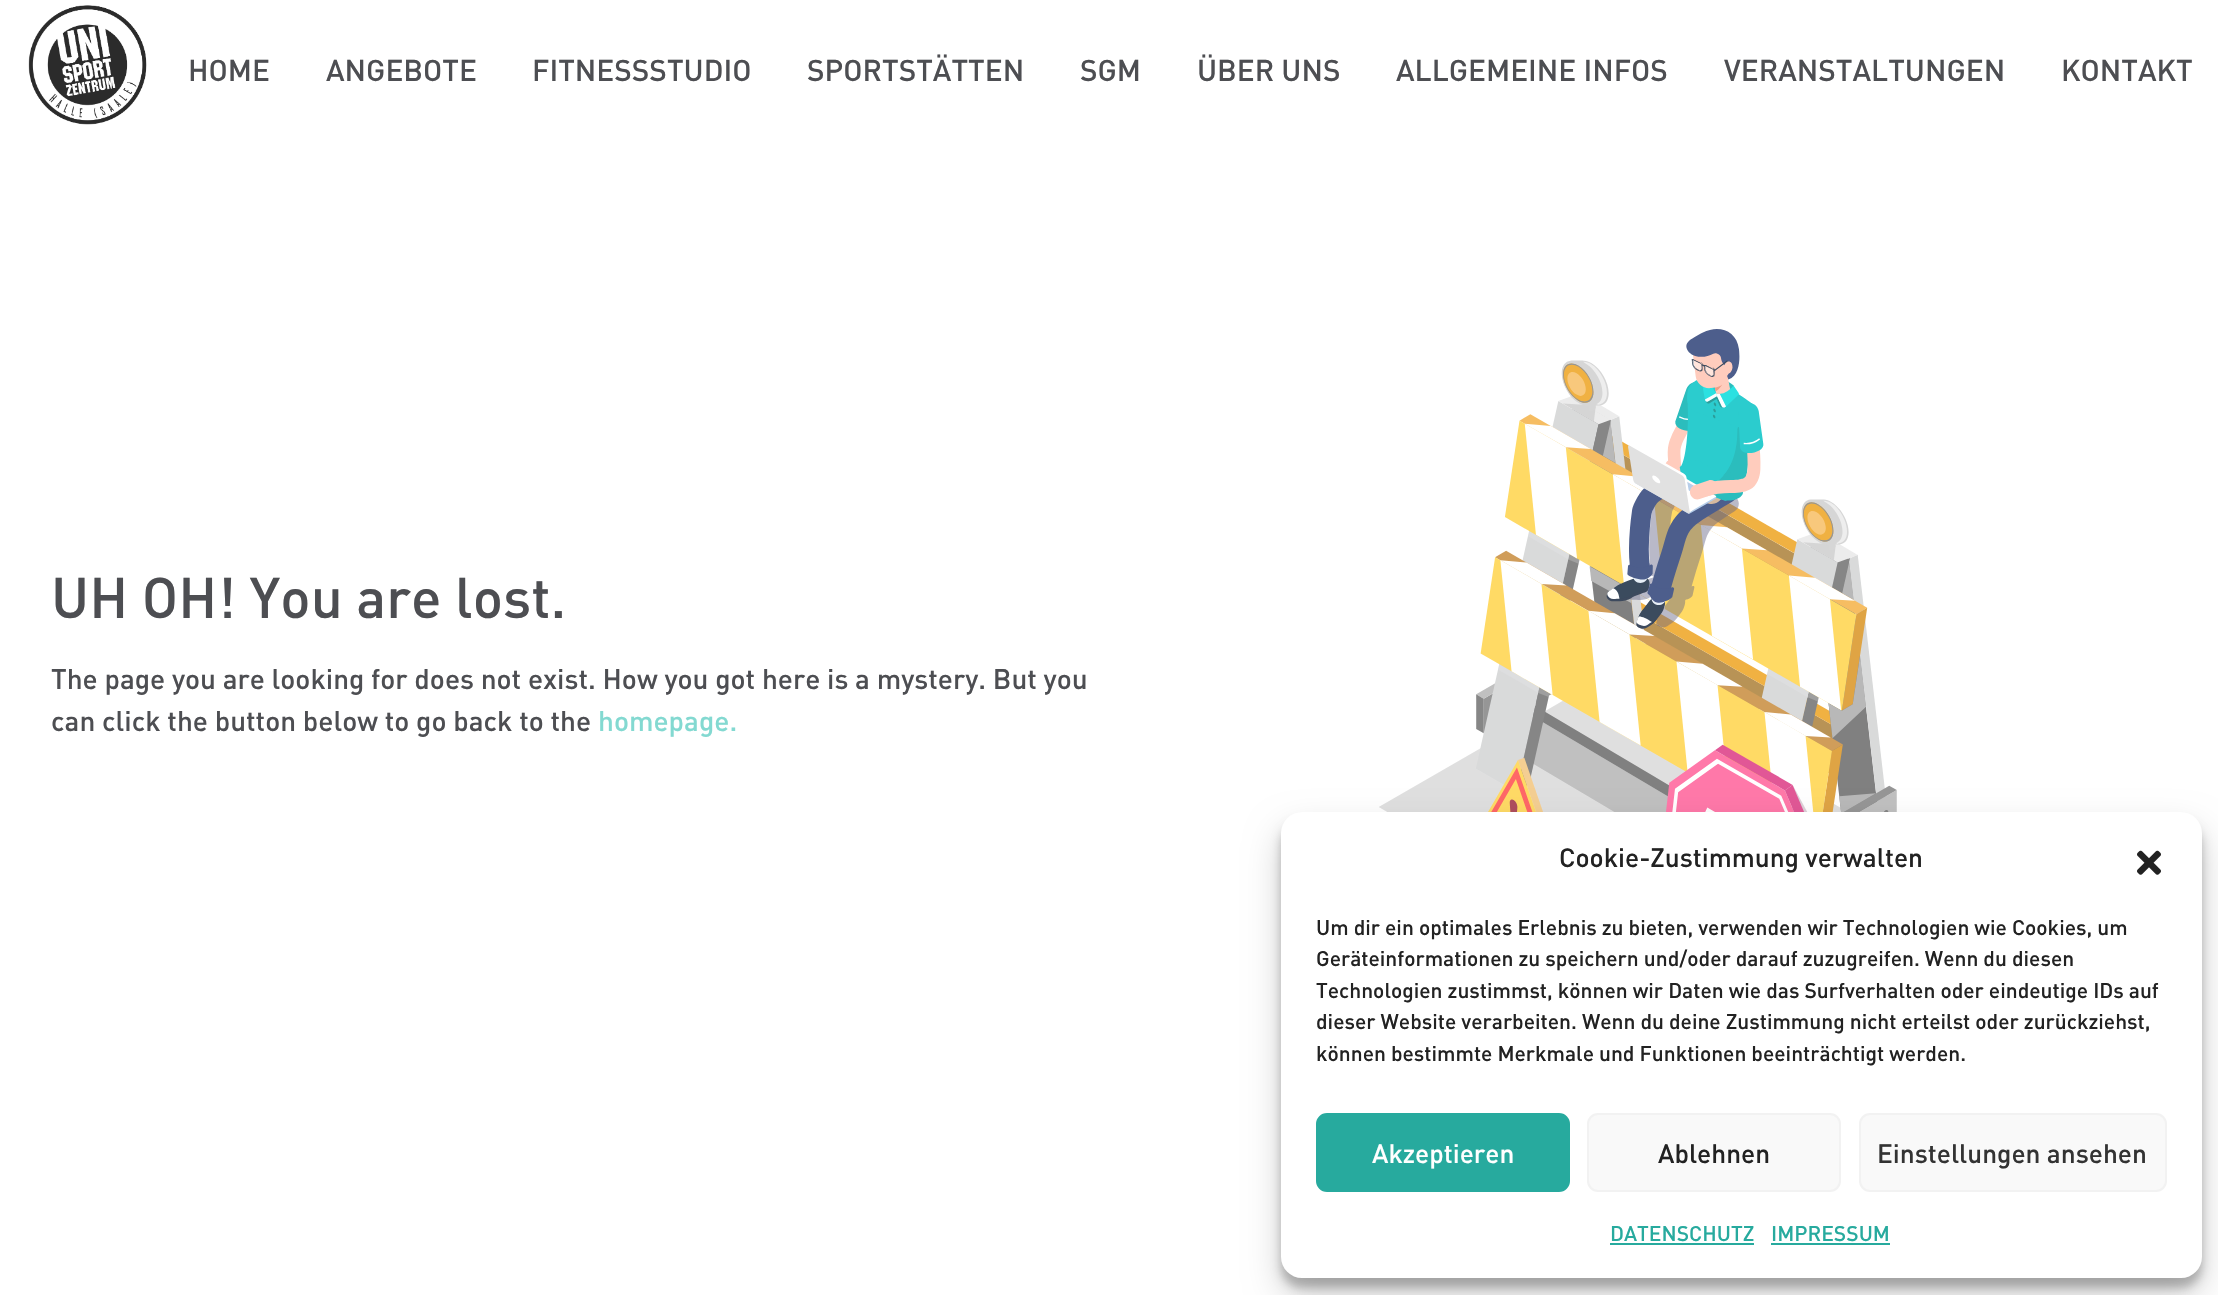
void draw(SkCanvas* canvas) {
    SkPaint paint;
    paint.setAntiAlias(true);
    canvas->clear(0xFFFFFFFF);
    canvas->drawImageRect(SkImages::DeferredFromEncodedData(SkData::MakeFromFileName("img1.png")), SkRect::MakeXYWH(28, 5, 119, 120), SkSamplingOptions());
    SkFont font1(fontMgr->matchFamilyStyle("DIN", SkFontStyle(500, SkFontStyle::kNormal_Width, SkFontStyle::kUpright_Slant)), 29.75f);
    font1.setSubpixel(true);
    paint.setColor(0xFF4D4E52);
    canvas->drawString("HOME", 188, 81, font1, paint);
    canvas->drawString("ANGEBOTE", 326, 81, font1, paint);
    canvas->drawString("FITNESSSTUDIO", 532, 81, font1, paint);
    canvas->drawString("SPORTSTÄTTEN", 807, 81, font1, paint);
    canvas->drawString("SGM", 1080, 81, font1, paint);
    canvas->drawString("ÜBER UNS", 1197, 81, font1, paint);
    canvas->drawString("ALLGEMEINE INFOS", 1396, 81, font1, paint);
    canvas->drawString("VERANSTALTUNGEN", 1724, 81, font1, paint);
    canvas->drawString("KONTAKT", 2061, 81, font1, paint);
    SkFont font2(fontMgr->matchFamilyStyle("DIN", SkFontStyle(500, SkFontStyle::kNormal_Width, SkFontStyle::kUpright_Slant)), 56.5f);
    font2.setSubpixel(true);
    canvas->drawString("UH OH! You are lost.", 51, 618, font2, paint);
    SkFont font3(fontMgr->matchFamilyStyle("DIN", SkFontStyle(500, SkFontStyle::kNormal_Width, SkFontStyle::kUpright_Slant)), 28);
    font3.setSubpixel(true);
    canvas->drawString("The page you are looking for does not exist. How you got here is a mystery. But you", 51, 689, font3, paint);
    canvas->drawString("can click the button below to go back to the", 51, 731, font3, paint);
    paint.setColor(0xFF83D9D1);
    canvas->drawString("homepage.", 598, 731, font3, paint);
    canvas->drawImageRect(SkImages::DeferredFromEncodedData(SkData::MakeFromFileName("img2.png")), SkRect::MakeXYWH(1379, 329, 518, 483), SkSamplingOptions());
    paint.setColor(0x3B000000);
    paint.setMaskFilter(SkMaskFilter::MakeBlur(kNormal_SkBlurStyle, 5));
    canvas->drawRoundRect(SkRect::MakeXYWH(1281, 823, 921, 465), 21, 21, paint);
    paint.setMaskFilter(nullptr);
    paint.setColor(0x30000000);
    paint.setMaskFilter(SkMaskFilter::MakeBlur(kNormal_SkBlurStyle, 17.5f));
    canvas->drawRoundRect(SkRect::MakeXYWH(1281, 830, 921, 465), 21, 21, paint);
    paint.setMaskFilter(nullptr);
    paint.setColor(0xFFFFFFFF);
    canvas->drawRoundRect(SkRect::MakeXYWH(1281, 812, 921, 466), 21, 21, paint);
    SkFont font4(fontMgr->matchFamilyStyle("DIN", SkFontStyle(500, SkFontStyle::kNormal_Width, SkFontStyle::kUpright_Slant)), 26.25f);
    font4.setSubpixel(true);
    paint.setColor(0xFF222222);
    canvas->drawString("Cookie-Zustimmung verwalten", 1559, 867, font4, paint);
    canvas->drawImageRect(SkImages::DeferredFromEncodedData(SkData::MakeFromFileName("img3.png")), SkRect::MakeXYWH(2137, 850, 24, 25), SkSamplingOptions());
    SkFont font5(fontMgr->matchFamilyStyle("DIN", SkFontStyle(500, SkFontStyle::kNormal_Width, SkFontStyle::kUpright_Slant)), 21);
    font5.setSubpixel(true);
    canvas->drawString("Um dir ein optimales Erlebnis zu bieten, verwenden wir Technologien wie Cookies, um", 1316, 935, font5, paint);
    canvas->drawString("Geräteinformationen zu speichern und/oder darauf zuzugreifen. Wenn du diesen", 1316, 966, font5, paint);
    canvas->drawString("Technologien zustimmst, können wir Daten wie das Surfverhalten oder eindeutige IDs auf", 1316, 998, font5, paint);
    canvas->drawString("dieser Website verarbeiten. Wenn du deine Zustimmung nicht erteilst oder zurückziehst,", 1316, 1029, font5, paint);
    canvas->drawString("können bestimmte Merkmale und Funktionen beeinträchtigt werden.", 1316, 1061, font5, paint);
    paint.setColor(0xFF27AA9E);
    canvas->drawRoundRect(SkRect::MakeXYWH(1317, 1114, 252, 77), 10, 10, paint);
    paint.setStyle(SkPaint::kStroke_Style);
    paint.setStrokeWidth(2);
    canvas->drawRoundRect(SkRect::MakeXYWH(1317, 1114, 252, 77), 10, 10, paint);
    paint.setStyle(SkPaint::kFill_Style);
    paint.setColor(0xFFFFFFFF);
    canvas->drawString("Akzeptieren", 1372, 1163, font4, paint);
    paint.setColor(0xFFF9F9F9);
    canvas->drawRoundRect(SkRect::MakeXYWH(1588, 1114, 252, 77), 10, 10, paint);
    paint.setStyle(SkPaint::kStroke_Style);
    paint.setColor(0xFFF2F2F2);
    canvas->drawRoundRect(SkRect::MakeXYWH(1588, 1114, 252, 77), 10, 10, paint);
    paint.setStyle(SkPaint::kFill_Style);
    paint.setColor(0xFF222222);
    canvas->drawString("Ablehnen", 1658, 1163, font4, paint);
    paint.setColor(0xFFF9F9F9);
    canvas->drawRoundRect(SkRect::MakeXYWH(1860, 1114, 306, 77), 10, 10, paint);
    paint.setStyle(SkPaint::kStroke_Style);
    paint.setColor(0xFFF2F2F2);
    canvas->drawRoundRect(SkRect::MakeXYWH(1860, 1114, 306, 77), 10, 10, paint);
    paint.setStyle(SkPaint::kFill_Style);
    paint.setColor(0xFF333333);
    canvas->drawString("Einstellungen ansehen", 1877, 1163, font4, paint);
    paint.setColor(0xFF27AA9E);
    canvas->drawString("DATENSCHUTZ", 1610, 1241, font5, paint);
    canvas->drawRect(SkRect::MakeXYWH(1610, 1243, 144, 2), paint);
    canvas->drawString("IMPRESSUM", 1771, 1241, font5, paint);
    canvas->drawRect(SkRect::MakeXYWH(1771, 1243, 119, 2), paint);
}
